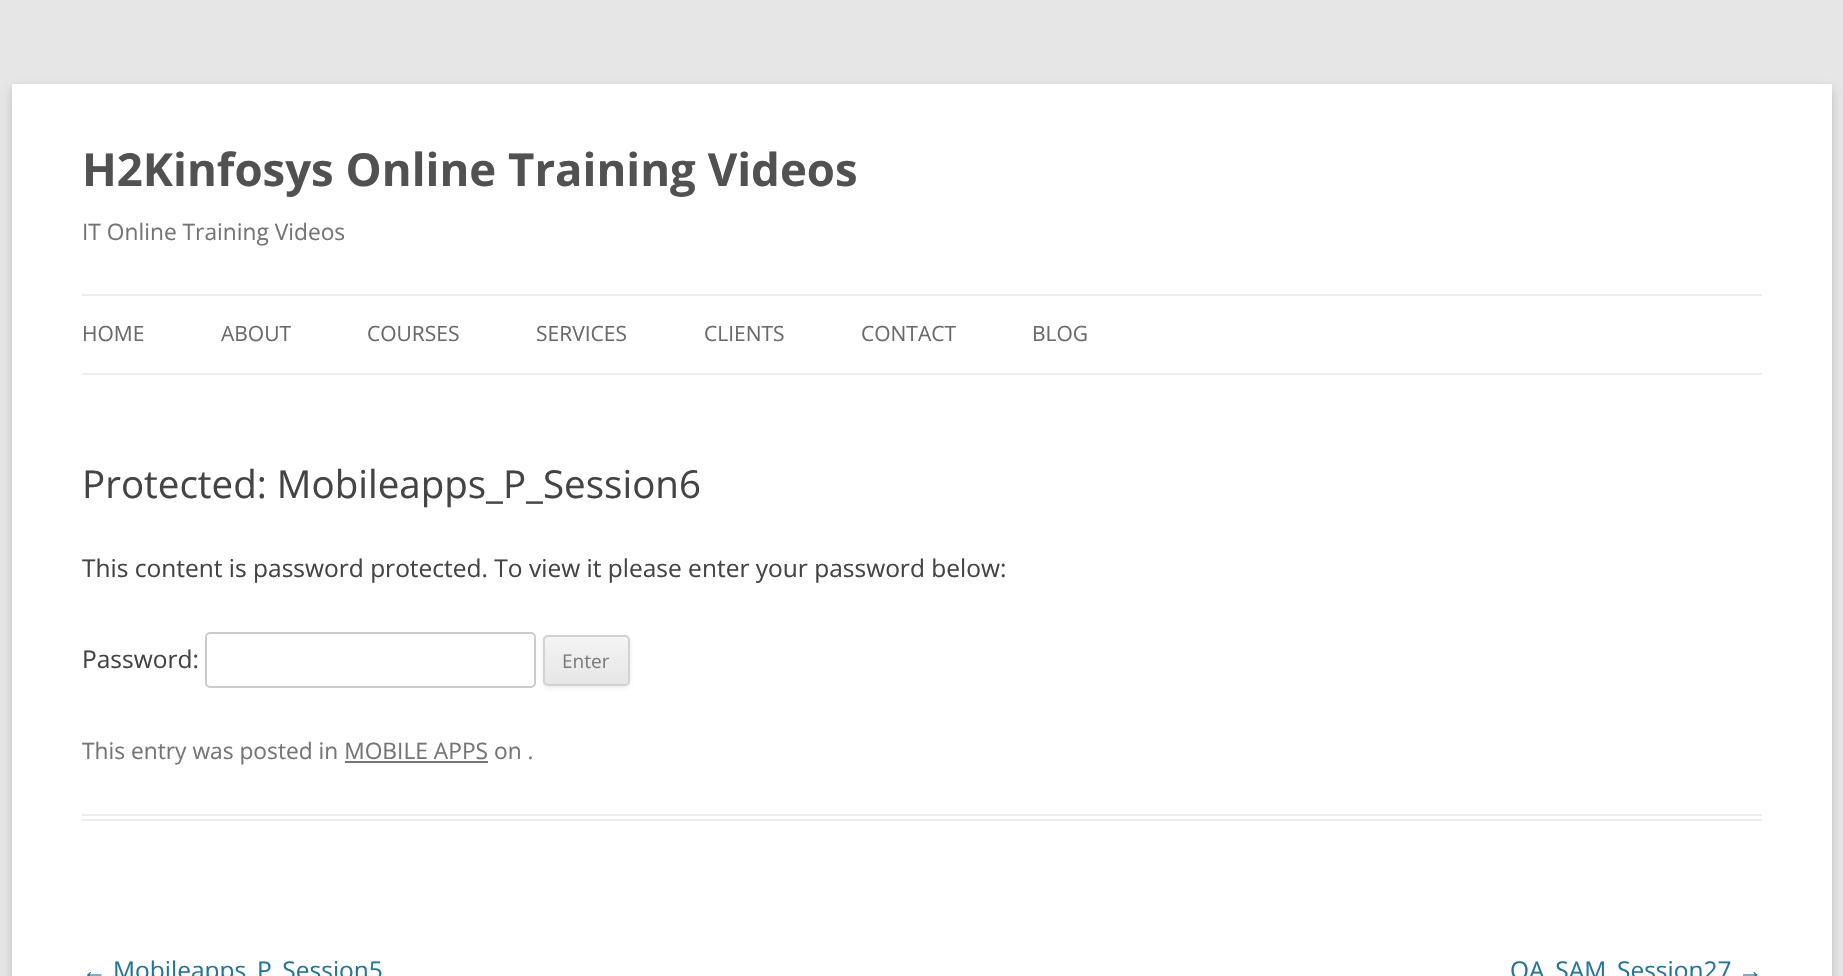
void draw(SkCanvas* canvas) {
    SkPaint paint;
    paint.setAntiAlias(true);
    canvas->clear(0xFFE6E6E6);
    paint.setColor(0x4D646464);
    paint.setMaskFilter(SkMaskFilter::MakeBlur(kNormal_SkBlurStyle, 5));
    canvas->drawRect(SkRect::MakeXYWH(12, 88, 1820, 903), paint);
    paint.setMaskFilter(nullptr);
    paint.setColor(0xFFFFFFFF);
    canvas->drawRect(SkRect::MakeXYWH(12, 84, 1820, 892), paint);
    SkFont font1(fontMgr->matchFamilyStyle("Open Sans", SkFontStyle::Bold()), 45.5f);
    font1.setSubpixel(true);
    paint.setColor(0xFF515151);
    canvas->drawString("H2Kinfosys Online Training Videos", 82, 186, font1, paint);
    SkFont font2(fontMgr->matchFamilyStyle("Open Sans", SkFontStyle::Normal()), 22.75f);
    font2.setSubpixel(true);
    paint.setColor(0xFF757575);
    canvas->drawString("IT Online Training Videos", 82, 240, font2, paint);
    paint.setColor(0xFFEDEDED);
    canvas->drawRect(SkRect::MakeXYWH(82, 294, 1680, 2), paint);
    canvas->drawRect(SkRect::MakeXYWH(82, 373, 1680, 2), paint);
    SkFont font3(fontMgr->matchFamilyStyle("Open Sans", SkFontStyle::Normal()), 21);
    font3.setSubpixel(true);
    paint.setColor(0xFF6A6A6A);
    canvas->drawString("HOME", 82, 341, font3, paint);
    canvas->drawString("ABOUT", 221, 341, font3, paint);
    canvas->drawString("COURSES", 367, 341, font3, paint);
    canvas->drawString("SERVICES", 536, 341, font3, paint);
    canvas->drawString("CLIENTS", 704, 341, font3, paint);
    canvas->drawString("CONTACT", 861, 341, font3, paint);
    canvas->drawString("BLOG", 1032, 341, font3, paint);
    paint.setColor(0xFFEDEDED);
    canvas->drawRect(SkRect::MakeXYWH(82, 814, 1680, 2), paint);
    canvas->drawRect(SkRect::MakeXYWH(82, 819, 1680, 2), paint);
    SkFont font4(fontMgr->matchFamilyStyle("Open Sans", SkFontStyle::Normal()), 38.5f);
    font4.setSubpixel(true);
    paint.setColor(0xFF444444);
    canvas->drawString("Protected: Mobileapps_P_Session6", 82, 498, font4, paint);
    SkFont font5(fontMgr->matchFamilyStyle("Open Sans", SkFontStyle::Normal()), 24.5f);
    font5.setSubpixel(true);
    canvas->drawString("This content is password protected. To view it please enter your password below:", 82, 577, font5, paint);
    canvas->drawString("Password:", 82, 668, font5, paint);
    paint.setStyle(SkPaint::kStroke_Style);
    paint.setStrokeWidth(2);
    paint.setColor(0xFFCCCCCC);
    canvas->drawRoundRect(SkRect::MakeXYWH(206, 633, 329, 54), 4, 4, paint);
    paint.setStyle(SkPaint::kFill_Style);
    paint.setColor(0x1A404040);
    paint.setMaskFilter(SkMaskFilter::MakeBlur(kNormal_SkBlurStyle, 2));
    canvas->drawRoundRect(SkRect::MakeXYWH(543, 637, 87, 51), 5, 5, paint);
    paint.setMaskFilter(nullptr);
    canvas->save();
    canvas->clipPath(SkPathBuilder().moveTo(548, 635).lineTo(625, 635).cubicTo(628, 635, 630, 637, 630, 640).lineTo(630, 681).cubicTo(630, 684, 628, 686, 625, 686).lineTo(548, 686).cubicTo(545, 686, 543, 684, 543, 681).lineTo(543, 640).cubicTo(543, 637, 545, 635, 548, 635).close().detach(), true);
    {
        const SkColor colors[] = {0xFFF4F4F4, 0xFFE6E6E6};
        const float stops[] = {0, 1};
        const SkPoint ends[] = {{586, 637}, {586, 684}};
        paint.setShader(SkGradientShader::MakeLinear(ends, colors, stops, 2, SkTileMode::kClamp));
        paint.setAlpha(255);
    }
    canvas->drawRect(SkRect::MakeXYWH(543, 637, 87, 47), paint);
    canvas->restore();
    paint.setStyle(SkPaint::kStroke_Style);
    paint.setShader(nullptr);
    paint.setColor(0xFFD2D2D2);
    canvas->drawRoundRect(SkRect::MakeXYWH(544, 636, 85, 49), 4, 4, paint);
    SkFont font6(fontMgr->matchFamilyStyle("Open Sans", SkFontStyle::Normal()), 19);
    font6.setSubpixel(true);
    paint.setStyle(SkPaint::kFill_Style);
    paint.setColor(0xFF7C7C7C);
    canvas->drawString("Enter", 562, 668, font6, paint);
    paint.setColor(0xFF757575);
    canvas->drawString("This entry was posted in MOBILE APPS on .", 82, 759, font2, paint);
    canvas->drawRect(SkRect::MakeXYWH(345, 761, 143, 2), paint);
    SkFont font7(fontMgr->matchFamilyStyle("Liberation Sans", SkFontStyle::Normal()), 24.5f);
    font7.setSubpixel(true);
    paint.setColor(0xFF21759B);
    canvas->drawString("←", 82, 979, font7, paint);
    canvas->drawString("Mobileapps_P_Session5", 113, 979, font5, paint);
    canvas->drawString("QA_SAM_Session27", 1510, 979, font5, paint);
    canvas->drawString("→", 1738, 979, font7, paint);
}
